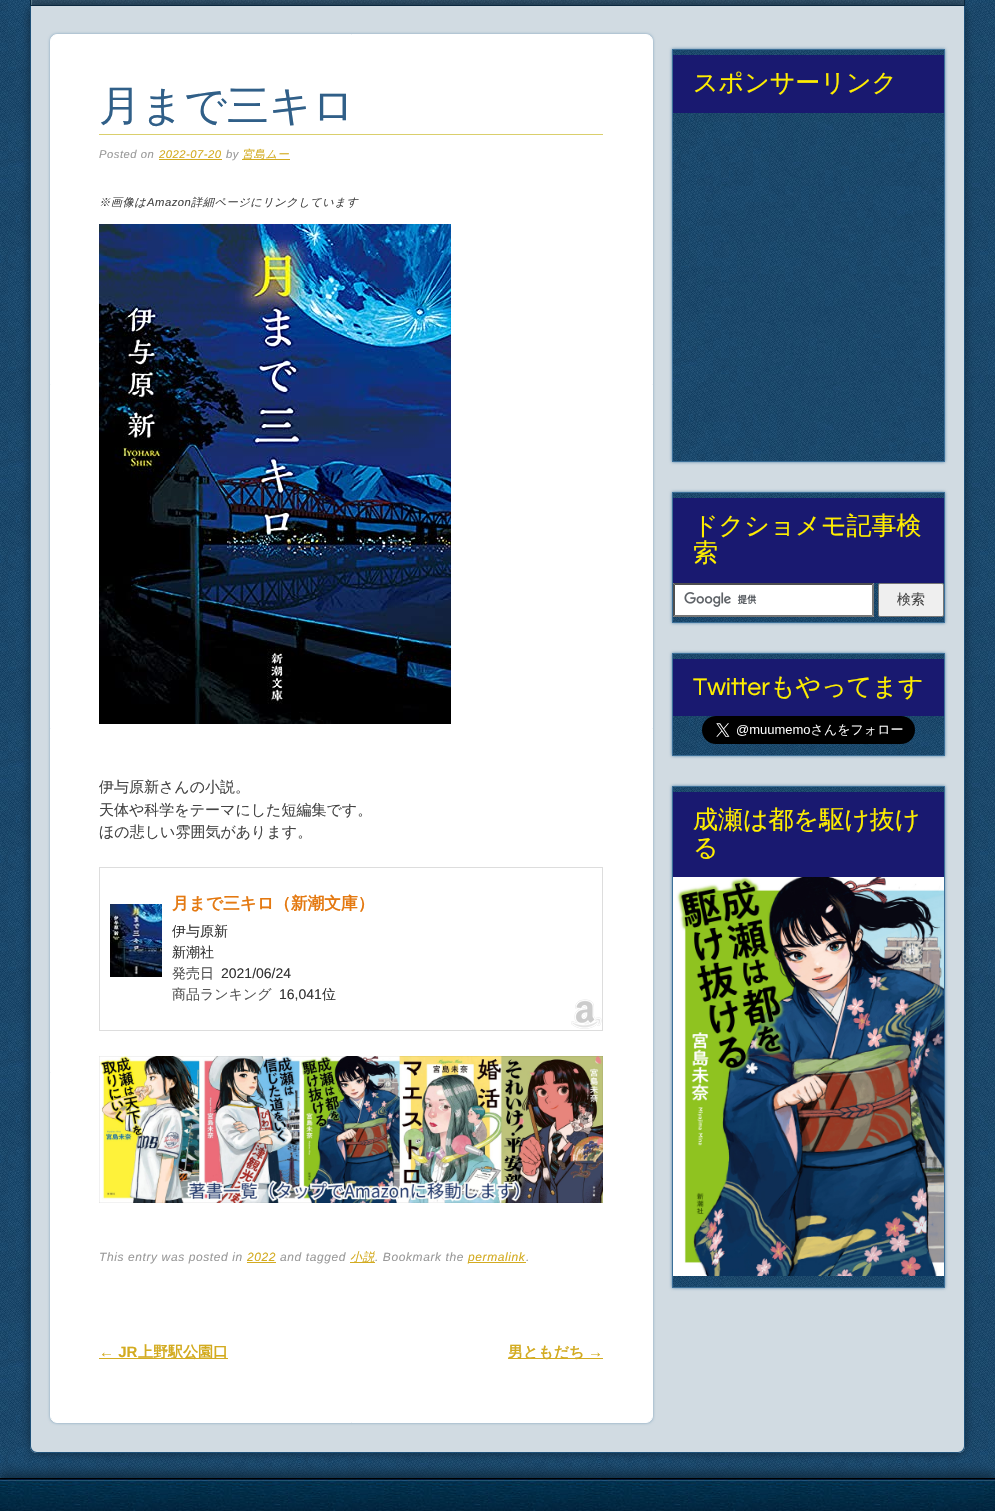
void draw(SkCanvas* canvas) {
    SkPaint paint;
    paint.setAntiAlias(true);
    auto spacedText = [&](const char* s, float x, float y, const SkFont& font, const SkPaint& ink, float letter, float word) {
        std::vector<SkGlyphID> glyphs(font.countText(s, strlen(s), SkTextEncoding::kUTF8));
        std::vector<float> xs(glyphs.size());
        font.textToGlyphs(s, strlen(s), SkTextEncoding::kUTF8, glyphs);
        font.getXPos(glyphs, xs, x);
        float extra = 0;
        for (size_t i = 0; i < glyphs.size(); i++) {
            xs[i] += extra;
            extra += letter + word * (glyphs[i] == font.unicharToGlyph(' '));
        }
        canvas->drawTextBlob(SkTextBlob::MakeFromPosHGlyphs(glyphs, xs, y, font), 0, 0, ink);
    };
    canvas->clear(0xFFFFFFFF);
    canvas->drawImageRect(SkImages::DeferredFromEncodedData(SkData::MakeFromFileName("img1.png")), SkRect::MakeXYWH(0, 0, 995, 1478), SkSamplingOptions());
    canvas->drawImageRect(SkImages::DeferredFromEncodedData(SkData::MakeFromFileName("img2.png")), SkRect::MakeXYWH(32, 0, 931, 4), SkSamplingOptions());
    paint.setColor(0xFF324D62);
    canvas->drawPath(SkPathBuilder().moveTo(31, 4).lineTo(31, 5).lineTo(964, 5).lineTo(964, -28).cubicTo(964, -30, 963, -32, 961, -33).cubicTo(962, -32, 963, -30, 963, -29).lineTo(963, 4).close().detach(), paint);
    paint.setColor(0xFF648392);
    canvas->drawPath(SkPathBuilder().moveTo(38, -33).lineTo(959, -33).cubicTo(960, -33, 962, -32, 963, -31).cubicTo(962, -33, 960, -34, 958, -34).lineTo(37, -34).cubicTo(34, -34, 31, -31, 31, -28).lineTo(31, 5).lineTo(32, 5).lineTo(32, -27).cubicTo(32, -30, 35, -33, 38, -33).close().detach(), paint);
    paint.setStyle(SkPaint::kStroke_Style);
    paint.setStrokeWidth(1);
    paint.setColor(0xFF06263F);
    canvas->drawRect(SkRect::MakeXYWH(30.5f, -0.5f, 934, 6), paint);
    paint.setStyle(SkPaint::kFill_Style);
    paint.setColor(0xFF0F293E);
    paint.setMaskFilter(SkMaskFilter::MakeBlur(kNormal_SkBlurStyle, 5));
    canvas->drawRoundRect(SkRect::MakeXYWH(30, 6, 935, 1447), 7, 7, paint);
    paint.setMaskFilter(nullptr);
    paint.setColor(0xFFD1DBE2);
    canvas->drawPath(SkPathBuilder().moveTo(30, 6).lineTo(965, 6).lineTo(965, 1446).cubicTo(965, 1450, 962, 1453, 958, 1453).lineTo(37, 1453).cubicTo(33, 1453, 30, 1450, 30, 1446).close().detach(), paint);
    paint.setColor(0xFF1E5078);
    canvas->drawPath(SkPathBuilder(SkPathFillType::kEvenOdd).moveTo(30, 6).lineTo(965, 6).lineTo(965, 1446).cubicTo(965, 1450, 962, 1453, 958, 1453).lineTo(37, 1453).cubicTo(33, 1453, 30, 1450, 30, 1446).close().moveTo(31, 6).lineTo(964, 6).lineTo(964, 1446).cubicTo(964, 1449, 961, 1452, 958, 1452).lineTo(37, 1452).cubicTo(34, 1452, 31, 1449, 31, 1446).close().detach(), paint);
    paint.setColor(0xFF7DA1BB);
    paint.setMaskFilter(SkMaskFilter::MakeBlur(kNormal_SkBlurStyle, 1.5f));
    canvas->drawRoundRect(SkRect::MakeXYWH(50, 34, 603, 1389), 7, 7, paint);
    paint.setMaskFilter(nullptr);
    paint.setColor(0xFFFFFFFF);
    canvas->drawRoundRect(SkRect::MakeXYWH(50.5f, 34.5f, 602, 1388), 6.5f, 6.5f, paint);
    paint.setStyle(SkPaint::kStroke_Style);
    canvas->drawRoundRect(SkRect::MakeXYWH(50.5f, 34.5f, 602, 1388), 6.5f, 6.5f, paint);
    paint.setStyle(SkPaint::kFill_Style);
    paint.setColor(0xFFDACF6C);
    canvas->drawRect(SkRect::MakeXYWH(99, 134, 504, 1), paint);
    SkFont font1(fontMgr->matchFamilyStyle("WenQuanYi Zen Hei", SkFontStyle(500, SkFontStyle::kNormal_Width, SkFontStyle::kUpright_Slant)), 42);
    font1.setSubpixel(true);
    paint.setColor(0xFF305F88);
    canvas->drawString("月まで三キロ", 99, 120, font1, paint);
    SkFont font2(fontMgr->matchFamilyStyle("Liberation Sans", SkFontStyle::Italic()), 11.25f);
    font2.setSubpixel(true);
    paint.setColor(0xFF999999);
    spacedText("Posted on", 99, 158, font2, paint, 0.5f, 0);
    paint.setColor(0xFFD3AB20);
    spacedText("2022-07-20", 159, 158, font2, paint, 0.5f, 0);
    canvas->drawRect(SkRect::MakeXYWH(159, 159, 63, 1), paint);
    paint.setColor(0xFF999999);
    spacedText("by", 226, 158, font2, paint, 0.5f, 0);
    paint.setColor(0xFFD3AB20);
    canvas->drawRect(SkRect::MakeXYWH(242, 159, 48, 1), paint);
    SkFont font3(fontMgr->matchFamilyStyle("WenQuanYi Zen Hei", SkFontStyle(500, SkFontStyle::kNormal_Width, SkFontStyle::kItalic_Slant)), 11.25f);
    font3.setSubpixel(true);
    spacedText("宮島ムー", 242, 158, font3, paint, 0.5f, 0);
    paint.setColor(0xFF444444);
    spacedText("※画像は", 99, 206, font3, paint, 0.5f, 0);
    spacedText("Amazon", 147, 206, font2, paint, 0.5f, 0);
    spacedText("詳細ページにリンクしています", 191, 206, font3, paint, 0.5f, 0);
    canvas->drawImageRect(SkImages::DeferredFromEncodedData(SkData::MakeFromFileName("img3.png")), SkRect::MakeXYWH(99, 224, 352, 500), SkSamplingOptions());
    SkFont font4(fontMgr->matchFamilyStyle("WenQuanYi Zen Hei", SkFontStyle(500, SkFontStyle::kNormal_Width, SkFontStyle::kUpright_Slant)), 15);
    font4.setSubpixel(true);
    canvas->drawString("伊与原新さんの小説。", 99, 792, font4, paint);
    canvas->drawString("天体や科学をテーマにした短編集です。", 99, 815, font4, paint);
    canvas->drawString("ほの悲しい雰囲気があります。", 99, 837, font4, paint);
    canvas->drawImageRect(SkImages::DeferredFromEncodedData(SkData::MakeFromFileName("img4.png")), SkRect::MakeXYWH(571, 999, 31, 30), SkSamplingOptions());
    paint.setStyle(SkPaint::kStroke_Style);
    paint.setColor(0xFFDDDDDD);
    canvas->drawRect(SkRect::MakeXYWH(99.5f, 867.5f, 503, 163), paint);
    canvas->drawImageRect(SkImages::DeferredFromEncodedData(SkData::MakeFromFileName("img5.png")), SkRect::MakeXYWH(110, 904, 52, 73), SkSamplingOptions());
    SkFont font5(fontMgr->matchFamilyStyle("WenQuanYi Zen Hei", SkFontStyle::Bold()), 16.75f);
    font5.setSubpixel(true);
    paint.setStyle(SkPaint::kFill_Style);
    paint.setColor(0xFFE47911);
    canvas->drawString("月まで三キロ（新潮文庫）", 172, 909, font5, paint);
    SkFont font6(fontMgr->matchFamilyStyle("WenQuanYi Zen Hei", SkFontStyle(500, SkFontStyle::kNormal_Width, SkFontStyle::kUpright_Slant)), 14);
    font6.setSubpixel(true);
    paint.setColor(0xFF333333);
    canvas->drawString("伊与原新", 172, 936, font6, paint);
    canvas->drawString("新潮社", 172, 957, font6, paint);
    paint.setColor(0xFF555555);
    canvas->drawString("発売日", 172, 978, font6, paint);
    SkFont font7(fontMgr->matchFamilyStyle("Liberation Sans", SkFontStyle::Normal()), 14);
    font7.setSubpixel(true);
    paint.setColor(0xFF333333);
    canvas->drawString("2021/06/24", 221, 978, font7, paint);
    paint.setColor(0xFF555555);
    canvas->drawString("商品ランキング", 172, 999, font6, paint);
    paint.setColor(0xFF333333);
    canvas->drawString("16,041", 279, 999, font7, paint);
    canvas->drawString("位", 322, 999, font6, paint);
    canvas->drawImageRect(SkImages::DeferredFromEncodedData(SkData::MakeFromFileName("img6.png")), SkRect::MakeXYWH(99, 1056, 504, 147), SkSamplingOptions());
    SkFont font8(fontMgr->matchFamilyStyle("Liberation Sans", SkFontStyle::Italic()), 12);
    font8.setSubpixel(true);
    paint.setColor(0xFF999999);
    spacedText("This entry was posted in", 99, 1261, font8, paint, 0.6f, 0);
    paint.setColor(0xFFD3AB20);
    spacedText("2022", 247, 1261, font8, paint, 0.6f, 0);
    canvas->drawRect(SkRect::MakeXYWH(247, 1262, 29, 1), paint);
    paint.setColor(0xFF999999);
    spacedText("and tagged", 280, 1261, font8, paint, 0.6f, 0);
    paint.setColor(0xFFD3AB20);
    canvas->drawRect(SkRect::MakeXYWH(350, 1262, 25, 1), paint);
    SkFont font9(fontMgr->matchFamilyStyle("WenQuanYi Zen Hei", SkFontStyle(500, SkFontStyle::kNormal_Width, SkFontStyle::kItalic_Slant)), 12);
    font9.setSubpixel(true);
    spacedText("小説", 350, 1261, font9, paint, 0.6f, 0);
    paint.setColor(0xFF999999);
    spacedText(". Bookmark the", 375, 1261, font8, paint, 0.6f, 0);
    paint.setColor(0xFFD3AB20);
    canvas->drawRect(SkRect::MakeXYWH(468, 1262, 58, 1), paint);
    spacedText("permalink", 468, 1261, font8, paint, 0.6f, 0);
    paint.setColor(0xFF999999);
    spacedText(".", 526, 1261, font8, paint, 0.6f, 0);
    SkFont font10(fontMgr->matchFamilyStyle("Liberation Sans", SkFontStyle::Bold()), 15);
    font10.setSubpixel(true);
    paint.setColor(0xFFD3AB20);
    canvas->drawString("← JR", 99, 1357, font10, paint);
    canvas->drawRect(SkRect::MakeXYWH(99, 1358, 129, 1), paint);
    SkFont font11(fontMgr->matchFamilyStyle("WenQuanYi Zen Hei", SkFontStyle::Bold()), 15);
    font11.setSubpixel(true);
    canvas->drawString("上野駅公園口", 138, 1357, font11, paint);
    canvas->drawRect(SkRect::MakeXYWH(508, 1358, 95, 1), paint);
    canvas->drawString("男ともだち", 508, 1357, font11, paint);
    canvas->drawString("→", 588, 1357, font10, paint);
    paint.setColor(0xFF5483A7);
    paint.setMaskFilter(SkMaskFilter::MakeBlur(kNormal_SkBlurStyle, 1.5f));
    canvas->drawRect(SkRect::MakeXYWH(672, 49, 273, 413), paint);
    paint.setMaskFilter(nullptr);
    canvas->drawImageRect(SkImages::DeferredFromEncodedData(SkData::MakeFromFileName("img7.png")), SkRect::MakeXYWH(673, 50, 271, 411), SkSamplingOptions());
    paint.setStyle(SkPaint::kStroke_Style);
    paint.setColor(0xFF3B6F98);
    canvas->drawRect(SkRect::MakeXYWH(672.5f, 49.5f, 272, 412), paint);
    paint.setStyle(SkPaint::kFill_Style);
    paint.setColor(0xFF191970);
    canvas->drawRect(SkRect::MakeXYWH(673, 55, 271, 58), paint);
    SkFont font12(fontMgr->matchFamilyStyle("WenQuanYi Zen Hei", SkFontStyle(500, SkFontStyle::kNormal_Width, SkFontStyle::kUpright_Slant)), 25);
    font12.setSubpixel(true);
    paint.setColor(0xFFFFEE00);
    canvas->drawString("スポンサーリンク", 693, 91, font12, paint);
    paint.setColor(0xFF5483A7);
    paint.setMaskFilter(SkMaskFilter::MakeBlur(kNormal_SkBlurStyle, 1.5f));
    canvas->drawRect(SkRect::MakeXYWH(672, 492, 273, 131), paint);
    paint.setMaskFilter(nullptr);
    canvas->drawImageRect(SkImages::DeferredFromEncodedData(SkData::MakeFromFileName("img8.png")), SkRect::MakeXYWH(673, 493, 271, 129), SkSamplingOptions());
    paint.setStyle(SkPaint::kStroke_Style);
    paint.setColor(0xFF3B6F98);
    canvas->drawRect(SkRect::MakeXYWH(672.5f, 492.5f, 272, 130), paint);
    paint.setStyle(SkPaint::kFill_Style);
    paint.setColor(0xFF191970);
    canvas->drawRect(SkRect::MakeXYWH(673, 498, 271, 85), paint);
    paint.setColor(0xFFFFEE00);
    canvas->drawString("ドクショメモ記事検", 693, 534, font12, paint);
    canvas->drawString("索", 693, 561, font12, paint);
    paint.setColor(0xFFFFFFFF);
    canvas->drawRect(SkRect::MakeXYWH(673, 583, 201, 34), paint);
    canvas->drawImageRect(SkImages::DeferredFromEncodedData(SkData::MakeFromFileName("img9.png")), SkRect::MakeXYWH(684, 592, 73, 15), SkSamplingOptions());
    paint.setColor(0xFF4F4F4F);
    canvas->drawPath(SkPathBuilder().moveTo(673, 583).lineTo(874, 583).lineTo(872, 585).lineTo(675, 585).close().detach(), paint);
    paint.setColor(0xFF767676);
    canvas->drawPath(SkPathBuilder().moveTo(874, 583).lineTo(874, 617).lineTo(872, 615).lineTo(872, 585).close().detach(), paint);
    canvas->drawPath(SkPathBuilder().moveTo(874, 617).lineTo(673, 617).lineTo(675, 615).lineTo(872, 615).close().detach(), paint);
    paint.setColor(0xFF4F4F4F);
    canvas->drawPath(SkPathBuilder().moveTo(673, 617).lineTo(673, 583).lineTo(675, 585).lineTo(675, 615).close().detach(), paint);
    paint.setColor(0xFFEFEFEF);
    canvas->drawRoundRect(SkRect::MakeXYWH(878.5f, 583.5f, 65, 33), 1.5f, 1.5f, paint);
    paint.setStyle(SkPaint::kStroke_Style);
    paint.setColor(0xFF767676);
    canvas->drawRoundRect(SkRect::MakeXYWH(878.5f, 583.5f, 65, 33), 1.5f, 1.5f, paint);
    paint.setStyle(SkPaint::kFill_Style);
    paint.setColor(0xFF444444);
    canvas->drawString("検索", 897, 604, font6, paint);
    paint.setColor(0xFF5483A7);
    paint.setMaskFilter(SkMaskFilter::MakeBlur(kNormal_SkBlurStyle, 1.5f));
    canvas->drawRect(SkRect::MakeXYWH(672, 653, 273, 103), paint);
    paint.setMaskFilter(nullptr);
    canvas->drawImageRect(SkImages::DeferredFromEncodedData(SkData::MakeFromFileName("img10.png")), SkRect::MakeXYWH(673, 654, 271, 101), SkSamplingOptions());
    paint.setStyle(SkPaint::kStroke_Style);
    paint.setColor(0xFF3B6F98);
    canvas->drawRect(SkRect::MakeXYWH(672.5f, 653.5f, 272, 102), paint);
    paint.setStyle(SkPaint::kFill_Style);
    paint.setColor(0xFF191970);
    canvas->drawRect(SkRect::MakeXYWH(673, 659, 271, 57), paint);
    SkFont font13(fontMgr->matchFamilyStyle("Questrial", SkFontStyle::Normal()), 25);
    font13.setSubpixel(true);
    paint.setColor(0xFFFFEE00);
    canvas->drawString("Twitter", 693, 695, font13, paint);
    canvas->drawString("もやってます", 770, 695, font12, paint);
    canvas->drawImageRect(SkImages::DeferredFromEncodedData(SkData::MakeFromFileName("img11.png")), SkRect::MakeXYWH(702, 716, 213, 28), SkSamplingOptions());
    paint.setColor(0xFF5483A7);
    paint.setMaskFilter(SkMaskFilter::MakeBlur(kNormal_SkBlurStyle, 1.5f));
    canvas->drawRect(SkRect::MakeXYWH(672, 786, 273, 502), paint);
    paint.setMaskFilter(nullptr);
    canvas->drawImageRect(SkImages::DeferredFromEncodedData(SkData::MakeFromFileName("img12.png")), SkRect::MakeXYWH(673, 787, 271, 500), SkSamplingOptions());
    paint.setStyle(SkPaint::kStroke_Style);
    paint.setColor(0xFF3B6F98);
    canvas->drawRect(SkRect::MakeXYWH(672.5f, 786.5f, 272, 501), paint);
    paint.setStyle(SkPaint::kFill_Style);
    paint.setColor(0xFF191970);
    canvas->drawRect(SkRect::MakeXYWH(673, 792, 271, 85), paint);
    paint.setColor(0xFFFFEE00);
    canvas->drawString("成瀬は都を駆け抜け", 693, 828, font12, paint);
    canvas->drawString("る", 693, 856, font12, paint);
    canvas->drawImageRect(SkImages::DeferredFromEncodedData(SkData::MakeFromFileName("img13.png")), SkRect::MakeXYWH(673, 877, 271, 399), SkSamplingOptions());
    paint.setColor(0xFF102D43);
    paint.setMaskFilter(SkMaskFilter::MakeBlur(kNormal_SkBlurStyle, 5));
    canvas->drawRect(SkRect::MakeXYWH(0, 1473, 995, 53), paint);
    paint.setMaskFilter(nullptr);
    canvas->drawImageRect(SkImages::DeferredFromEncodedData(SkData::MakeFromFileName("img14.png")), SkRect::MakeXYWH(0, 1479, 995, 32), SkSamplingOptions());
    paint.setColor(0xFF000000);
    canvas->drawRect(SkRect::MakeXYWH(0, 1478, 995, 1), paint);
}
